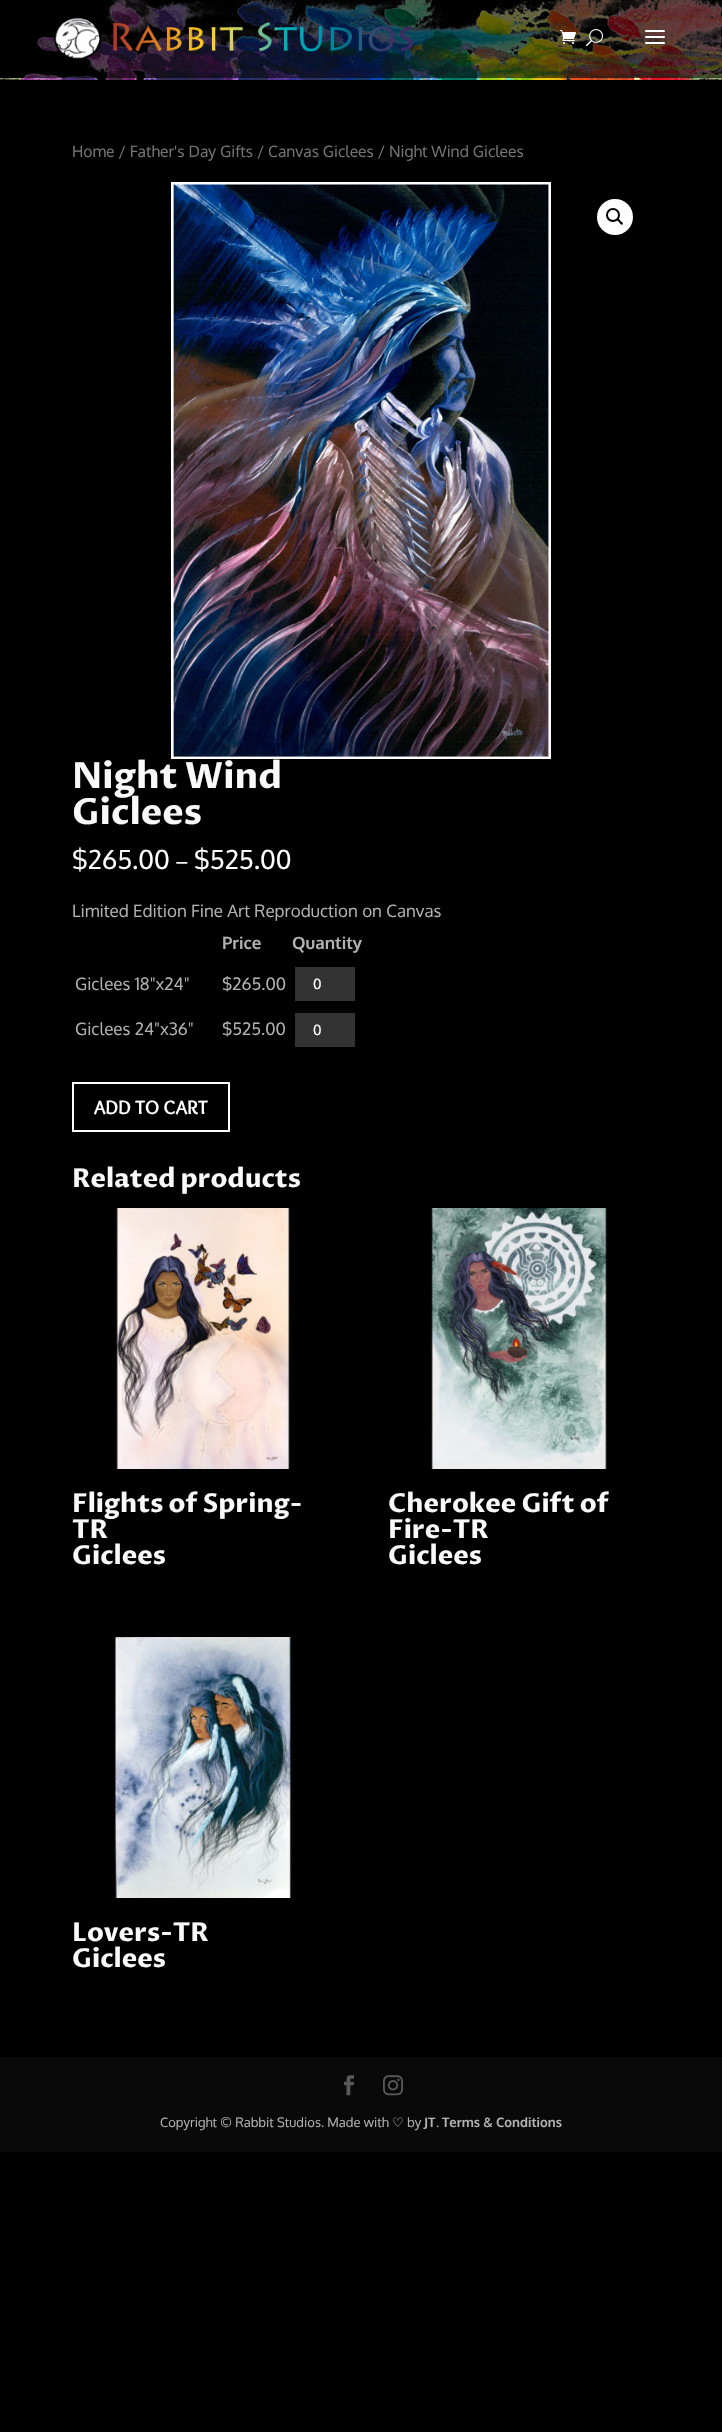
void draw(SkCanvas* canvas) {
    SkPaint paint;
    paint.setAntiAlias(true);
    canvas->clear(0xFF000000);
    canvas->drawImageRect(SkImages::DeferredFromEncodedData(SkData::MakeFromFileName("img1.png")), SkRect::MakeXYWH(0, 78, 722, 2), SkSamplingOptions());
    canvas->drawImageRect(SkImages::DeferredFromEncodedData(SkData::MakeFromFileName("img2.png")), SkRect::MakeXYWH(22, 0, 700, 78), SkSamplingOptions());
    canvas->drawImageRect(SkImages::DeferredFromEncodedData(SkData::MakeFromFileName("img3.png")), SkRect::MakeXYWH(54, 17, 359, 42), SkSamplingOptions());
    canvas->drawImageRect(SkImages::DeferredFromEncodedData(SkData::MakeFromFileName("img4.png")), SkRect::MakeXYWH(560, 30, 16, 14), SkSamplingOptions());
    canvas->drawImageRect(SkImages::DeferredFromEncodedData(SkData::MakeFromFileName("img5.png")), SkRect::MakeXYWH(586, 29, 17, 18), SkSamplingOptions());
    canvas->drawImageRect(SkImages::DeferredFromEncodedData(SkData::MakeFromFileName("img6.png")), SkRect::MakeXYWH(645, 30, 20, 14), SkSamplingOptions());
    SkFont font1(fontMgr->matchFamilyStyle("Oxygen", SkFontStyle::Normal()), 15.65f);
    font1.setSubpixel(true);
    paint.setColor(0xFF767676);
    canvas->drawString("Home / Father's Day Gifts / Canvas Giclees / Night Wind Giclees", 72, 157, font1, paint);
    canvas->drawImageRect(SkImages::DeferredFromEncodedData(SkData::MakeFromFileName("img7.png")), SkRect::MakeXYWH(171, 182, 380, 577), SkSamplingOptions());
    paint.setColor(0xFFFFFFFF);
    canvas->drawCircle(615, 217, 18, paint);
    paint.setStyle(SkPaint::kStroke_Style);
    paint.setStrokeWidth(2);
    paint.setColor(0xFF000000);
    canvas->drawCircle(613, 215, 6, paint);
    paint.setStyle(SkPaint::kFill_Style);
    canvas->drawPath(SkPathBuilder().moveTo(617, 218.5f).cubicTo(618, 217.5f, 620, 220, 620.5f, 221).cubicTo(621, 221.5f, 624, 223, 622.5f, 224.5f).cubicTo(621.5f, 225.5f, 619.5f, 223, 619, 222).cubicTo(618.5f, 221.5f, 616, 220, 617, 218.5f).close().detach(), paint);
    SkFont font2(fontMgr->matchFamilyStyle("Proza Libre", SkFontStyle::Bold()), 36);
    font2.setSubpixel(true);
    paint.setColor(0xFFF9F9F9);
    canvas->drawString("Night Wind", 72, 788, font2, paint);
    canvas->drawString("Giclees", 72, 824, font2, paint);
    SkFont font3(fontMgr->matchFamilyStyle("Oxygen", SkFontStyle::Normal()), 26);
    font3.setSubpixel(true);
    paint.setColor(0xFFFFFFFF);
    canvas->drawString("$265.00", 72, 869, font3, paint);
    SkFont font4(fontMgr->matchFamilyStyle("Oxygen", SkFontStyle::Normal()), 21);
    font4.setSubpixel(true);
    canvas->drawString("–", 175, 869, font4, paint);
    canvas->drawString("$525.00", 194, 869, font3, paint);
    SkFont font5(fontMgr->matchFamilyStyle("Oxygen", SkFontStyle::Normal()), 17);
    font5.setSubpixel(true);
    paint.setColor(0xFFB2B2B2);
    canvas->drawString("Limited Edition Fine Art Reproduction on Canvas", 72, 917, font5, paint);
    SkFont font6(fontMgr->matchFamilyStyle("Oxygen", SkFontStyle::Bold()), 17);
    font6.setSubpixel(true);
    canvas->drawString("Price", 222, 949, font6, paint);
    canvas->drawString("Quantity", 292, 949, font6, paint);
    canvas->drawString("Giclees 18\"x24\"", 75, 990, font5, paint);
    canvas->drawString("$265.00", 222, 990, font5, paint);
    paint.setColor(0xFF333333);
    canvas->drawRect(SkRect::MakeXYWH(295, 967, 60, 34), paint);
    SkFont font7(fontMgr->matchFamilyStyle("Oxygen", SkFontStyle::Normal()), 14);
    font7.setSubpixel(true);
    paint.setColor(0xFFFFFFFF);
    canvas->drawString("0", 313, 989, font7, paint);
    paint.setColor(0xFFB2B2B2);
    canvas->drawString("Giclees 24\"x36\"", 75, 1035, font5, paint);
    canvas->drawString("$525.00", 222, 1035, font5, paint);
    paint.setColor(0xFF333333);
    canvas->drawRect(SkRect::MakeXYWH(295, 1013, 60, 34), paint);
    paint.setColor(0xFFFFFFFF);
    canvas->drawString("0", 313, 1035, font7, paint);
    paint.setStyle(SkPaint::kStroke_Style);
    canvas->drawRect(SkRect::MakeXYWH(73, 1083, 156, 48), paint);
    SkFont font8(fontMgr->matchFamilyStyle("Overlock", SkFontStyle::Bold()), 20);
    font8.setSubpixel(true);
    paint.setStyle(SkPaint::kFill_Style);
    canvas->drawString("ADD TO CART", 94, 1114, font8, paint);
    SkFont font9(fontMgr->matchFamilyStyle("Proza Libre", SkFontStyle::Bold()), 26);
    font9.setSubpixel(true);
    paint.setColor(0xFFF9F9F9);
    canvas->drawString("Related products", 72, 1187, font9, paint);
    canvas->drawImageRect(SkImages::DeferredFromEncodedData(SkData::MakeFromFileName("img8.png")), SkRect::MakeXYWH(114, 1208, 176, 261), SkSamplingOptions());
    canvas->drawString("Flights of Spring-", 72, 1512, font9, paint);
    canvas->drawString("TR", 72, 1538, font9, paint);
    canvas->drawString("Giclees", 72, 1564, font9, paint);
    canvas->drawImageRect(SkImages::DeferredFromEncodedData(SkData::MakeFromFileName("img9.png")), SkRect::MakeXYWH(430, 1208, 179, 261), SkSamplingOptions());
    canvas->drawString("Cherokee Gift of", 388, 1512, font9, paint);
    canvas->drawString("Fire-TR", 388, 1538, font9, paint);
    canvas->drawString("Giclees", 388, 1564, font9, paint);
    canvas->drawImageRect(SkImages::DeferredFromEncodedData(SkData::MakeFromFileName("img10.png")), SkRect::MakeXYWH(114, 1637, 181, 261), SkSamplingOptions());
    canvas->drawString("Lovers-TR", 72, 1941, font9, paint);
    canvas->drawString("Giclees", 72, 1967, font9, paint);
    paint.setColor(0xFF090909);
    canvas->drawRect(SkRect::MakeXYWH(0, 2057, 722, 95), paint);
    canvas->drawImageRect(SkImages::DeferredFromEncodedData(SkData::MakeFromFileName("img11.png")), SkRect::MakeXYWH(344, 2075, 10, 21), SkSamplingOptions());
    canvas->drawImageRect(SkImages::DeferredFromEncodedData(SkData::MakeFromFileName("img12.png")), SkRect::MakeXYWH(383, 2075, 20, 21), SkSamplingOptions());
    SkFont font10(fontMgr->matchFamilyStyle("Oxygen", SkFontStyle::Normal()), 13);
    font10.setSubpixel(true);
    paint.setColor(0xFFB2B2B2);
    canvas->drawString("Copyright © Rabbit Studios. Made with", 160, 2127, font10, paint);
    SkFont font11(fontMgr->matchFamilyStyle("DejaVu Sans", SkFontStyle::Normal()), 13);
    font11.setSubpixel(true);
    canvas->drawString("♡", 392, 2127, font11, paint);
    canvas->drawString("by", 407, 2127, font10, paint);
    SkFont font12(fontMgr->matchFamilyStyle("Oxygen", SkFontStyle::Bold()), 13);
    font12.setSubpixel(true);
    canvas->drawString("JT", 424, 2127, font12, paint);
    canvas->drawString(".", 436, 2127, font10, paint);
    canvas->drawString("Terms & Conditions", 442, 2127, font12, paint);
}
